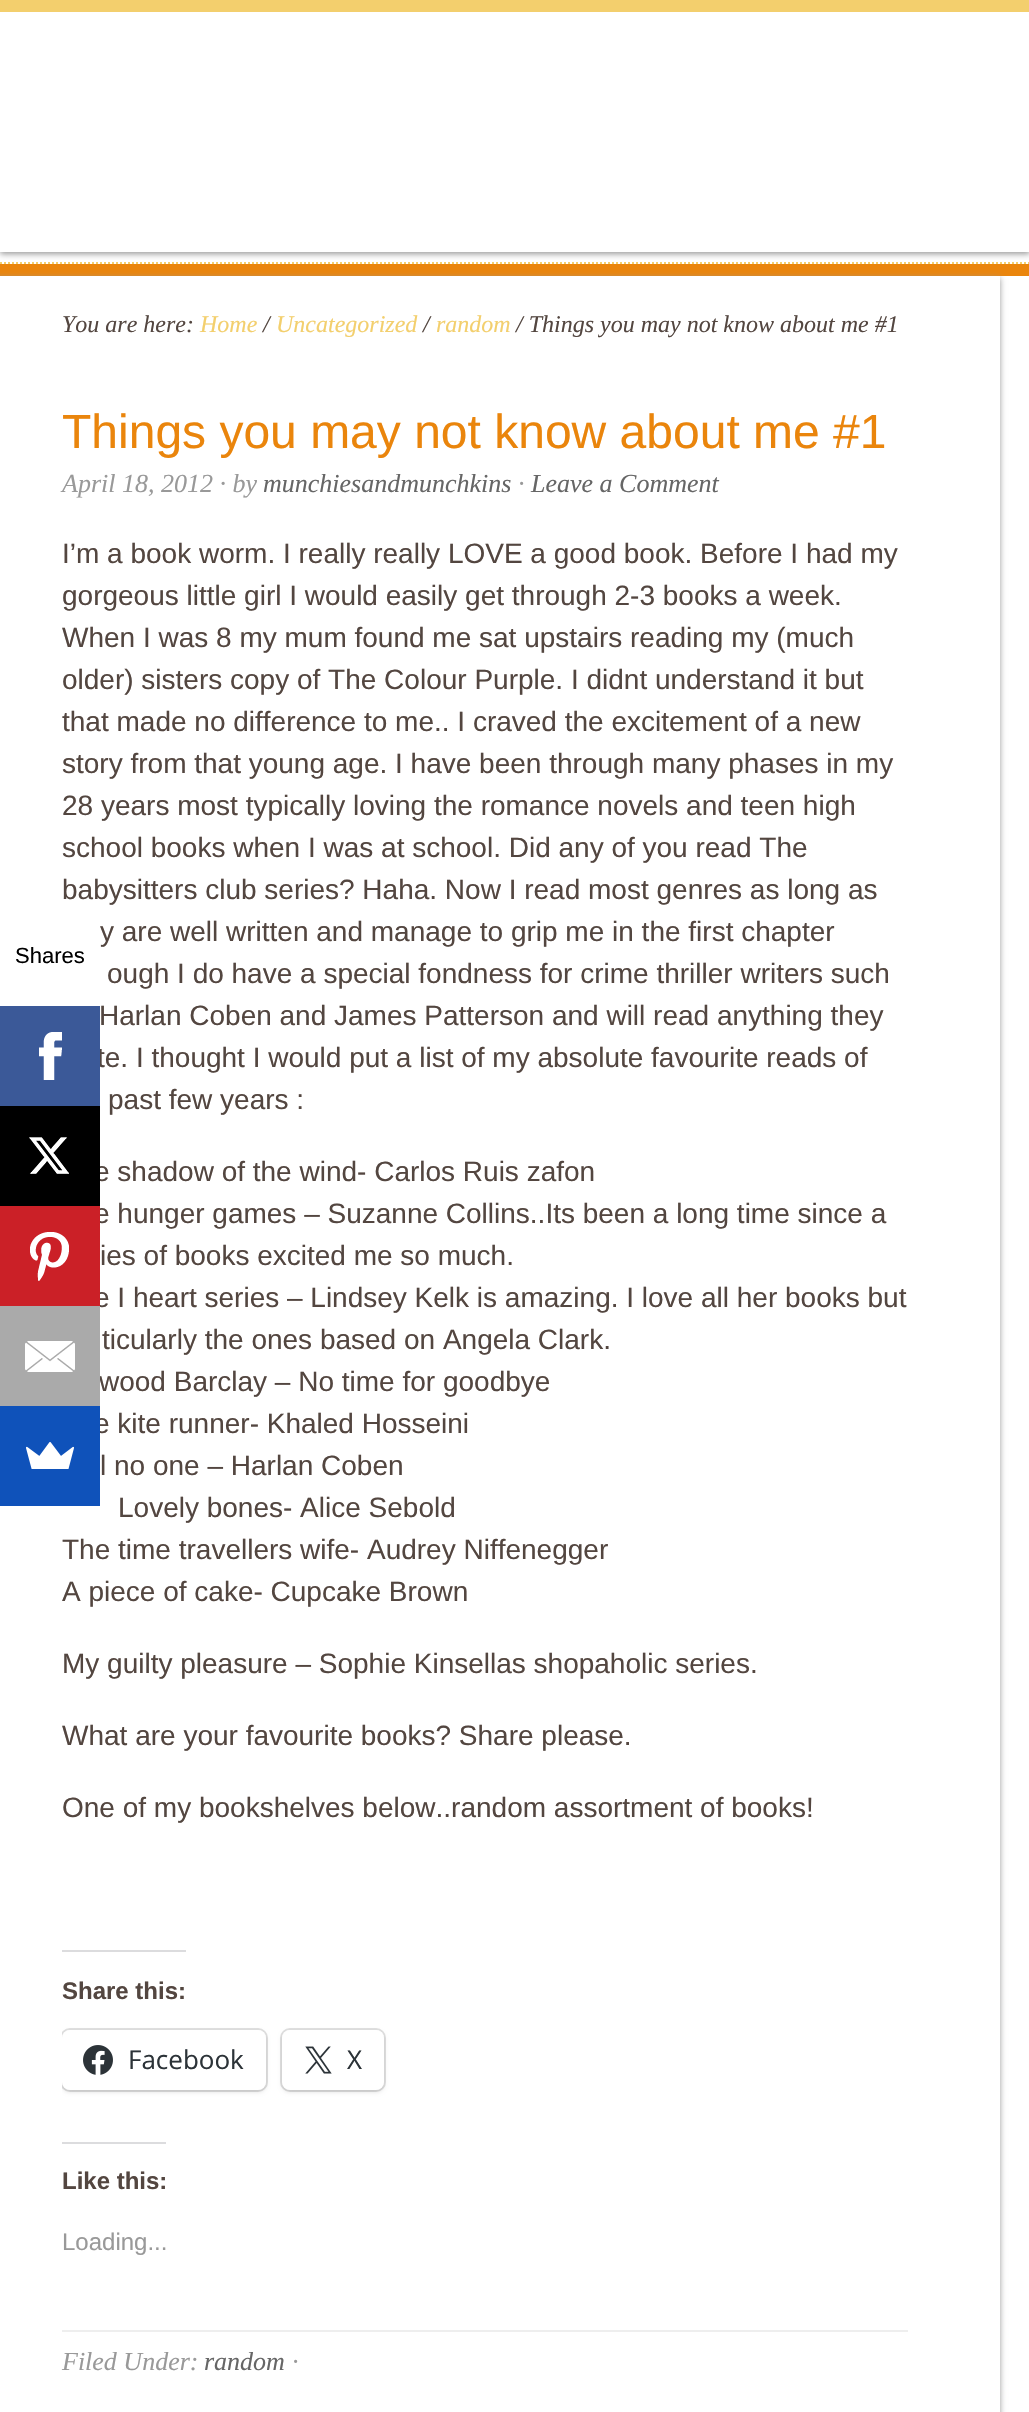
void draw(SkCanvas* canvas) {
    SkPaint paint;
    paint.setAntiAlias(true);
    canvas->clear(0xFFFFFFFF);
    paint.setColor(0xFFEA850C);
    canvas->drawRect(SkRect::MakeXYWH(0, 264, 1029, 12), paint);
    canvas->save();
    canvas->clipPath(SkPathBuilder(SkPathFillType::kEvenOdd).moveTo(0, 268).lineTo(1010, 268).lineTo(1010, 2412).lineTo(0, 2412).close().moveTo(-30, 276).lineTo(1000, 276).lineTo(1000, 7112).lineTo(-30, 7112).close().detach(), true);
    paint.setColor(0xFF999999);
    paint.setMaskFilter(SkMaskFilter::MakeBlur(kNormal_SkBlurStyle, 3));
    canvas->drawRect(SkRect::MakeXYWH(-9, 278, 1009, 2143), paint);
    paint.setMaskFilter(nullptr);
    canvas->restore();
    SkFont font1(fontMgr->matchFamilyStyle("Liberation Sans", SkFontStyle::Normal()), 22);
    font1.setSubpixel(true);
    paint.setColor(0xFF000000);
    canvas->drawString("Shares", 15, 963, font1, paint);
    SkFont font2(fontMgr->matchFamilyStyle("Liberation Sans", SkFontStyle::Normal()), 28);
    font2.setSubpixel(true);
    paint.setColor(0xFF534640);
    canvas->drawString("te. I thought I would put a list of my absolute favourite reads of", 97, 1067, font2, paint);
    paint.setColor(0xFF3B5998);
    canvas->drawRect(SkRect::MakeXYWH(0, 1006, 100, 100), paint);
    canvas->drawImageRect(SkImages::DeferredFromEncodedData(SkData::MakeFromFileName("img1.png")), SkRect::MakeXYWH(39, 1032, 23, 48), SkSamplingOptions());
    paint.setColor(0xFF534640);
    canvas->drawString("e shadow of the wind- Carlos Ruis zafon", 94, 1181, font2, paint);
    canvas->drawString("e hunger games – Suzanne Collins..Its been a long time since a", 94, 1223, font2, paint);
    paint.setColor(0xFF000000);
    canvas->drawRect(SkRect::MakeXYWH(0, 1106, 100, 100), paint);
    canvas->drawImageRect(SkImages::DeferredFromEncodedData(SkData::MakeFromFileName("img2.png")), SkRect::MakeXYWH(29, 1137, 40, 37), SkSamplingOptions());
    paint.setColor(0xFF534640);
    canvas->drawString("e I heart series – Lindsey Kelk is amazing. I love all her books but", 94, 1307, font2, paint);
    paint.setColor(0xFFCB2027);
    canvas->drawRect(SkRect::MakeXYWH(0, 1206, 100, 100), paint);
    canvas->drawImageRect(SkImages::DeferredFromEncodedData(SkData::MakeFromFileName("img3.png")), SkRect::MakeXYWH(30, 1232, 39, 49), SkSamplingOptions());
    paint.setColor(0xFF534640);
    canvas->drawString("wood Barclay – No time for goodbye", 99, 1391, font2, paint);
    paint.setColor(0xFFAAAAAA);
    canvas->drawRect(SkRect::MakeXYWH(0, 1306, 100, 100), paint);
    canvas->drawImageRect(SkImages::DeferredFromEncodedData(SkData::MakeFromFileName("img4.png")), SkRect::MakeXYWH(25, 1341, 50, 31), SkSamplingOptions());
    paint.setColor(0xFF534640);
    canvas->drawString("e kite runner- Khaled Hosseini", 94, 1433, font2, paint);
    paint.setColor(0xFF0F52BA);
    canvas->drawRect(SkRect::MakeXYWH(0, 1406, 100, 100), paint);
    canvas->drawImageRect(SkImages::DeferredFromEncodedData(SkData::MakeFromFileName("img5.png")), SkRect::MakeXYWH(26, 1442, 48, 27), SkSamplingOptions());
    paint.setStyle(SkPaint::kStroke_Style);
    paint.setStrokeWidth(2);
    paint.setColor(0xFFF3CF6D);
    paint.setPathEffect(SkDashPathEffect::Make({{2, 2}}, 0));
    canvas->drawPath(SkPathBuilder().moveTo(0, 263).lineTo(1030, 263).detach(), paint);
    paint.setPathEffect(nullptr);
    canvas->save();
    canvas->clipRect(SkRect::MakeXYWH(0, 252, 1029, 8));
    paint.setStyle(SkPaint::kFill_Style);
    paint.setColor(0xFF999999);
    paint.setMaskFilter(SkMaskFilter::MakeBlur(kNormal_SkBlurStyle, 3));
    canvas->drawRect(SkRect::MakeXYWH(0, 2, 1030, 252), paint);
    paint.setMaskFilter(nullptr);
    canvas->restore();
    paint.setColor(0xFFF3CF6D);
    canvas->drawRect(SkRect::MakeXYWH(0, 0, 1029, 12), paint);
    SkFont font3(fontMgr->matchFamilyStyle("Liberation Serif", SkFontStyle::Italic()), 24);
    font3.setSubpixel(true);
    paint.setColor(0xFF534640);
    canvas->drawString("You are here:", 62, 332, font3, paint);
    paint.setColor(0xFFF3CF6D);
    canvas->drawString("Home", 200, 332, font3, paint);
    paint.setColor(0xFF534640);
    canvas->drawString("/", 263, 332, font3, paint);
    paint.setColor(0xFFF3CF6D);
    canvas->drawString("Uncategorized", 276, 332, font3, paint);
    paint.setColor(0xFF534640);
    canvas->drawString("/", 423, 332, font3, paint);
    paint.setColor(0xFFF3CF6D);
    canvas->drawString("random", 436, 332, font3, paint);
    paint.setColor(0xFF534640);
    canvas->drawString("/ Things you may not know about me #1", 516, 332, font3, paint);
    SkFont font4(fontMgr->matchFamilyStyle("Liberation Sans", SkFontStyle::Normal()), 48);
    font4.setSubpixel(true);
    paint.setColor(0xFFEA850C);
    canvas->drawString("Things you may not know about me #1", 62, 448, font4, paint);
    SkFont font5(fontMgr->matchFamilyStyle("Liberation Serif", SkFontStyle::Italic()), 26);
    font5.setSubpixel(true);
    paint.setColor(0xFF999999);
    canvas->drawString("April 18, 2012 · by", 62, 492, font5, paint);
    paint.setColor(0xFF666666);
    canvas->drawString("munchiesandmunchkins", 263, 492, font5, paint);
    paint.setColor(0xFF999999);
    canvas->drawString("·", 518, 492, font5, paint);
    paint.setColor(0xFF666666);
    canvas->drawString("Leave a Comment", 531, 492, font5, paint);
    paint.setColor(0xFF534640);
    canvas->drawString("I’m a book worm. I really really LOVE a good book. Before I had my", 62, 563, font2, paint);
    canvas->drawString("gorgeous little girl I would easily get through 2-3 books a week.", 62, 605, font2, paint);
    canvas->drawString("When I was 8 my mum found me sat upstairs reading my (much", 62, 647, font2, paint);
    canvas->drawString("older) sisters copy of The Colour Purple. I didnt understand it but", 62, 689, font2, paint);
    canvas->drawString("that made no difference to me.. I craved the excitement of a new", 62, 731, font2, paint);
    canvas->drawString("story from that young age. I have been through many phases in my", 62, 773, font2, paint);
    canvas->drawString("28 years most typically loving the romance novels and teen high", 62, 815, font2, paint);
    canvas->drawString("school books when I was at school. Did any of you read The", 62, 857, font2, paint);
    canvas->drawString("babysitters club series? Haha. Now I read most genres as long as", 62, 899, font2, paint);
    canvas->drawString("y are well written and manage to grip me in the first chapter", 100, 941, font2, paint);
    canvas->drawString("ough I do have a special fondness for crime thriller writers such", 107, 983, font2, paint);
    canvas->drawString("Harlan Coben and James Patterson and will read anything they", 99, 1025, font2, paint);
    canvas->drawString("past few years :", 108, 1109, font2, paint);
    canvas->drawString("ies of books excited me so much.", 100, 1265, font2, paint);
    canvas->drawString("ticularly the ones based on Angela Clark.", 102, 1349, font2, paint);
    canvas->drawString("l no one – Harlan Coben", 100, 1475, font2, paint);
    canvas->drawString("Lovely bones- Alice Sebold", 118, 1517, font2, paint);
    canvas->drawString("The time travellers wife- Audrey Niffenegger", 62, 1559, font2, paint);
    canvas->drawString("A piece of cake- Cupcake Brown", 62, 1601, font2, paint);
    canvas->drawString("My guilty pleasure – Sophie Kinsellas shopaholic series.", 62, 1673, font2, paint);
    canvas->drawString("What are your favourite books? Share please.", 62, 1745, font2, paint);
    canvas->drawString("One of my bookshelves below..random assortment of books!", 62, 1817, font2, paint);
    paint.setColor(0xFFDCDCDE);
    canvas->drawRect(SkRect::MakeXYWH(62, 1950, 124, 2), paint);
    SkFont font6(fontMgr->matchFamilyStyle("Liberation Sans", SkFontStyle::Bold()), 24);
    font6.setSubpixel(true);
    paint.setColor(0xFF534640);
    canvas->drawString("Share this:", 62, 1999, font6, paint);
    canvas->save();
    canvas->clipRect(SkRect::MakeXYWH(62, 532, 846, 1798));
    paint.setStyle(SkPaint::kStroke_Style);
    paint.setColor(0xFFE0E0E0);
    canvas->drawRoundRect(SkRect::MakeXYWH(61, 2029, 206, 62), 9, 9, paint);
    canvas->restore();
    canvas->save();
    canvas->clipRect(SkRect::MakeXYWH(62, 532, 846, 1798));
    paint.setStyle(SkPaint::kFill_Style);
    paint.setColor(0x1F000000);
    paint.setMaskFilter(SkMaskFilter::MakeBlur(kNormal_SkBlurStyle, 2));
    canvas->drawRoundRect(SkRect::MakeXYWH(62, 2032, 204, 60), 8, 8, paint);
    paint.setMaskFilter(nullptr);
    canvas->restore();
    paint.setColor(0xFFFFFFFF);
    canvas->drawRoundRect(SkRect::MakeXYWH(62, 2030, 204, 60), 8, 8, paint);
    canvas->drawImageRect(SkImages::DeferredFromEncodedData(SkData::MakeFromFileName("img6.png")), SkRect::MakeXYWH(83, 2045, 30, 30), SkSamplingOptions());
    SkFont font7(fontMgr->matchFamilyStyle("Open Sans", SkFontStyle::Normal()), 26);
    font7.setSubpixel(true);
    paint.setColor(0xFF2C3338);
    canvas->drawString("Facebook", 128, 2069, font7, paint);
    paint.setStyle(SkPaint::kStroke_Style);
    paint.setColor(0xFFE0E0E0);
    canvas->drawRoundRect(SkRect::MakeXYWH(281, 2029, 104, 62), 9, 9, paint);
    paint.setStyle(SkPaint::kFill_Style);
    paint.setColor(0x1F000000);
    paint.setMaskFilter(SkMaskFilter::MakeBlur(kNormal_SkBlurStyle, 2));
    canvas->drawRoundRect(SkRect::MakeXYWH(282, 2032, 102, 60), 8, 8, paint);
    paint.setMaskFilter(nullptr);
    paint.setColor(0xFFFFFFFF);
    canvas->drawRoundRect(SkRect::MakeXYWH(282, 2030, 102, 60), 8, 8, paint);
    canvas->drawImageRect(SkImages::DeferredFromEncodedData(SkData::MakeFromFileName("img7.png")), SkRect::MakeXYWH(305, 2046, 27, 28), SkSamplingOptions());
    paint.setColor(0xFF2C3338);
    canvas->drawString("X", 347, 2069, font7, paint);
    paint.setColor(0xFFDCDCDE);
    canvas->drawRect(SkRect::MakeXYWH(62, 2142, 104, 2), paint);
    paint.setColor(0xFF534640);
    canvas->drawString("Like this:", 62, 2189, font6, paint);
    SkFont font8(fontMgr->matchFamilyStyle("Liberation Sans", SkFontStyle::Normal()), 24);
    font8.setSubpixel(true);
    paint.setColor(0xFF999999);
    canvas->drawString("Loading...", 62, 2250, font8, paint);
    paint.setColor(0xFFEEEEEE);
    canvas->drawRect(SkRect::MakeXYWH(62, 2330, 846, 2), paint);
    paint.setColor(0xFF999999);
    canvas->drawString("Filed Under:", 62, 2370, font5, paint);
    paint.setColor(0xFF666666);
    canvas->drawString("random", 204, 2370, font5, paint);
    paint.setColor(0xFF999999);
    canvas->drawString("·", 292, 2370, font5, paint);
}
